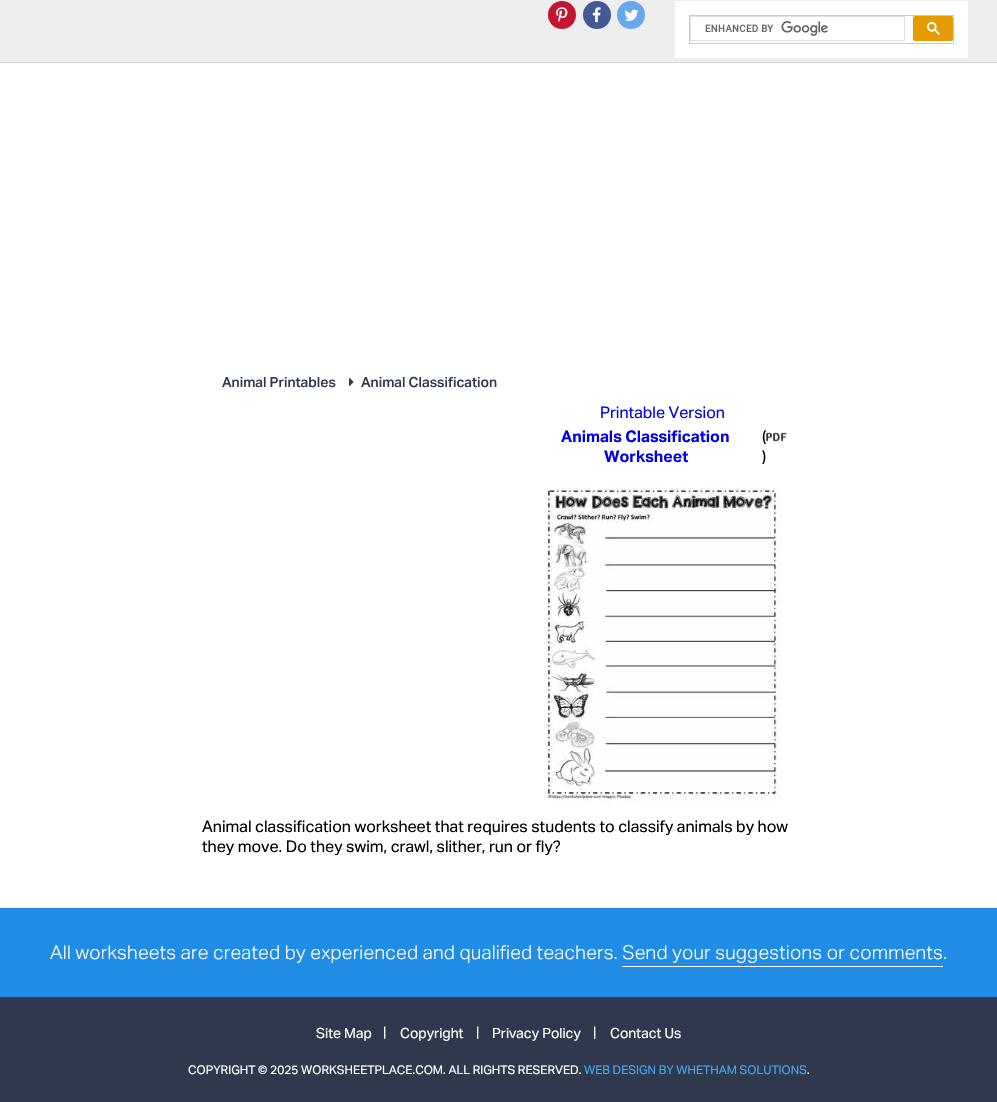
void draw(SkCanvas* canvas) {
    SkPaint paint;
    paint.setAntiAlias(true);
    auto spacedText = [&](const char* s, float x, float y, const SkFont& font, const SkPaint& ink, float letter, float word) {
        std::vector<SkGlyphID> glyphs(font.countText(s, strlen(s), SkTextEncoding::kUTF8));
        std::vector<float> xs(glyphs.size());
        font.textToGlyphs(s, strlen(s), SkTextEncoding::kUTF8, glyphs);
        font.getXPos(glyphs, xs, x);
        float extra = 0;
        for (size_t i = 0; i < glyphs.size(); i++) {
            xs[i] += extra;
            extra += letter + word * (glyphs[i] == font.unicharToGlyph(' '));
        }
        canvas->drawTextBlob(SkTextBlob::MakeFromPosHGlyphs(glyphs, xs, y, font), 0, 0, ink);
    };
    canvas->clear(0xFFFFFFFF);
    paint.setColor(0xFFEEEEEE);
    canvas->drawRect(SkRect::MakeXYWH(0, 0, 997, 62), paint);
    paint.setColor(0xFFD5D5D5);
    canvas->drawRect(SkRect::MakeXYWH(0, 62, 997, 1), paint);
    paint.setColor(0xFFC31532);
    canvas->drawCircle(562, 15, 14, paint);
    canvas->drawImageRect(SkImages::DeferredFromEncodedData(SkData::MakeFromFileName("img1.png")), SkRect::MakeXYWH(556, 7, 12, 16), SkSamplingOptions());
    paint.setColor(0xFF455795);
    canvas->drawCircle(597, 15, 14, paint);
    canvas->drawImageRect(SkImages::DeferredFromEncodedData(SkData::MakeFromFileName("img2.png")), SkRect::MakeXYWH(592, 7, 9, 16), SkSamplingOptions());
    paint.setColor(0xFF66A8EB);
    canvas->drawCircle(631, 15, 14, paint);
    canvas->drawImageRect(SkImages::DeferredFromEncodedData(SkData::MakeFromFileName("img3.png")), SkRect::MakeXYWH(624, 9, 15, 12), SkSamplingOptions());
    paint.setColor(0xFFFFFFFF);
    canvas->drawRect(SkRect::MakeXYWH(675, 1, 293, 57), paint);
    paint.setStyle(SkPaint::kStroke_Style);
    paint.setStrokeWidth(1);
    paint.setColor(0xFFC9C9C9);
    canvas->drawRect(SkRect::MakeXYWH(689.5f, 15.5f, 264, 28), paint);
    paint.setColor(0xFFDFE1E5);
    canvas->drawRect(SkRect::MakeXYWH(690.5f, 16.5f, 214, 24), paint);
    canvas->drawImageRect(SkImages::DeferredFromEncodedData(SkData::MakeFromFileName("img4.png")), SkRect::MakeXYWH(705, 21, 123, 15), SkSamplingOptions());
    paint.setStyle(SkPaint::kFill_Style);
    paint.setColor(0xFFE49C01);
    canvas->drawRoundRect(SkRect::MakeXYWH(913, 16, 40, 25), 2, 2, paint);
    canvas->drawImageRect(SkImages::DeferredFromEncodedData(SkData::MakeFromFileName("img5.png")), SkRect::MakeXYWH(927, 22, 13, 13), SkSamplingOptions());
    SkFont font1(fontMgr->matchFamilyStyle("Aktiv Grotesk", SkFontStyle(500, SkFontStyle::kNormal_Width, SkFontStyle::kUpright_Slant)), 14);
    font1.setSubpixel(true);
    paint.setColor(0xFF30384D);
    canvas->drawString("Animal Printables", 222, 387, font1, paint);
    canvas->drawImageRect(SkImages::DeferredFromEncodedData(SkData::MakeFromFileName("img6.png")), SkRect::MakeXYWH(349, 378, 5, 8), SkSamplingOptions());
    canvas->drawString("Animal Classification", 361, 387, font1, paint);
    SkFont font2(fontMgr->matchFamilyStyle("Aktiv Grotesk", SkFontStyle::Normal()), 16);
    font2.setSubpixel(true);
    paint.setColor(0xFF0000EE);
    canvas->drawString("Printable Version", 600, 418, font2, paint);
    SkFont font3(fontMgr->matchFamilyStyle("Aktiv Grotesk", SkFontStyle::Bold()), 16);
    font3.setSubpixel(true);
    canvas->drawString("Animals Classification", 561, 442, font3, paint);
    canvas->drawString("Worksheet", 604, 462, font3, paint);
    paint.setColor(0xFF000000);
    canvas->drawString("(", 762, 442, font2, paint);
    canvas->drawImageRect(SkImages::DeferredFromEncodedData(SkData::MakeFromFileName("img7.png")), SkRect::MakeXYWH(766, 432, 21, 10), SkSamplingOptions());
    canvas->drawString(")", 762, 462, font2, paint);
    canvas->drawImageRect(SkImages::DeferredFromEncodedData(SkData::MakeFromFileName("img8.png")), SkRect::MakeXYWH(546, 487, 235, 317), SkSamplingOptions());
    canvas->drawString("Animal classification worksheet that requires students to classify animals by how", 202, 832, font2, paint);
    canvas->drawString("they move. Do they swim, crawl, slither, run or fly?", 202, 852, font2, paint);
    paint.setColor(0xFF218CE6);
    canvas->drawRect(SkRect::MakeXYWH(0, 908, 997, 89), paint);
    SkFont font4(fontMgr->matchFamilyStyle("Aktiv Grotesk", SkFontStyle(300, SkFontStyle::kNormal_Width, SkFontStyle::kUpright_Slant)), 19);
    font4.setSubpixel(true);
    paint.setColor(0xFFFFFFFF);
    spacedText("All worksheets are created by experienced and qualified teachers. Send your suggestions or comments", 50, 959, font4, paint, 0.25f, 0);
    spacedText(".", 943, 959, font4, paint, 0.25f, 0);
    canvas->drawRect(SkRect::MakeXYWH(622, 966, 321, 1), paint);
    paint.setColor(0xFF30384D);
    canvas->drawRect(SkRect::MakeXYWH(0, 997, 997, 105), paint);
    SkFont font5(fontMgr->matchFamilyStyle("Aktiv Grotesk", SkFontStyle::Normal()), 14);
    font5.setSubpixel(true);
    paint.setColor(0xFFFFFFFF);
    canvas->drawString("Site Map", 316, 1038, font5, paint);
    canvas->drawString("|", 383, 1037, font5, paint);
    canvas->drawString("Copyright", 400, 1038, font5, paint);
    canvas->drawString("|", 476, 1037, font5, paint);
    canvas->drawString("Privacy Policy", 492, 1038, font5, paint);
    canvas->drawString("|", 593, 1037, font5, paint);
    canvas->drawString("Contact Us", 610, 1038, font5, paint);
    SkFont font6(fontMgr->matchFamilyStyle("Aktiv Grotesk", SkFontStyle::Normal()), 12);
    font6.setSubpixel(true);
    canvas->drawString("COPYRIGHT © 2025 WORKSHEETPLACE.COM. ALL RIGHTS RESERVED.", 188, 1074, font6, paint);
    paint.setColor(0xFF48A6F5);
    canvas->drawString("WEB DESIGN BY WHETHAM SOLUTIONS", 584, 1074, font6, paint);
    paint.setColor(0xFFFFFFFF);
    canvas->drawString(".", 807, 1074, font6, paint);
}
